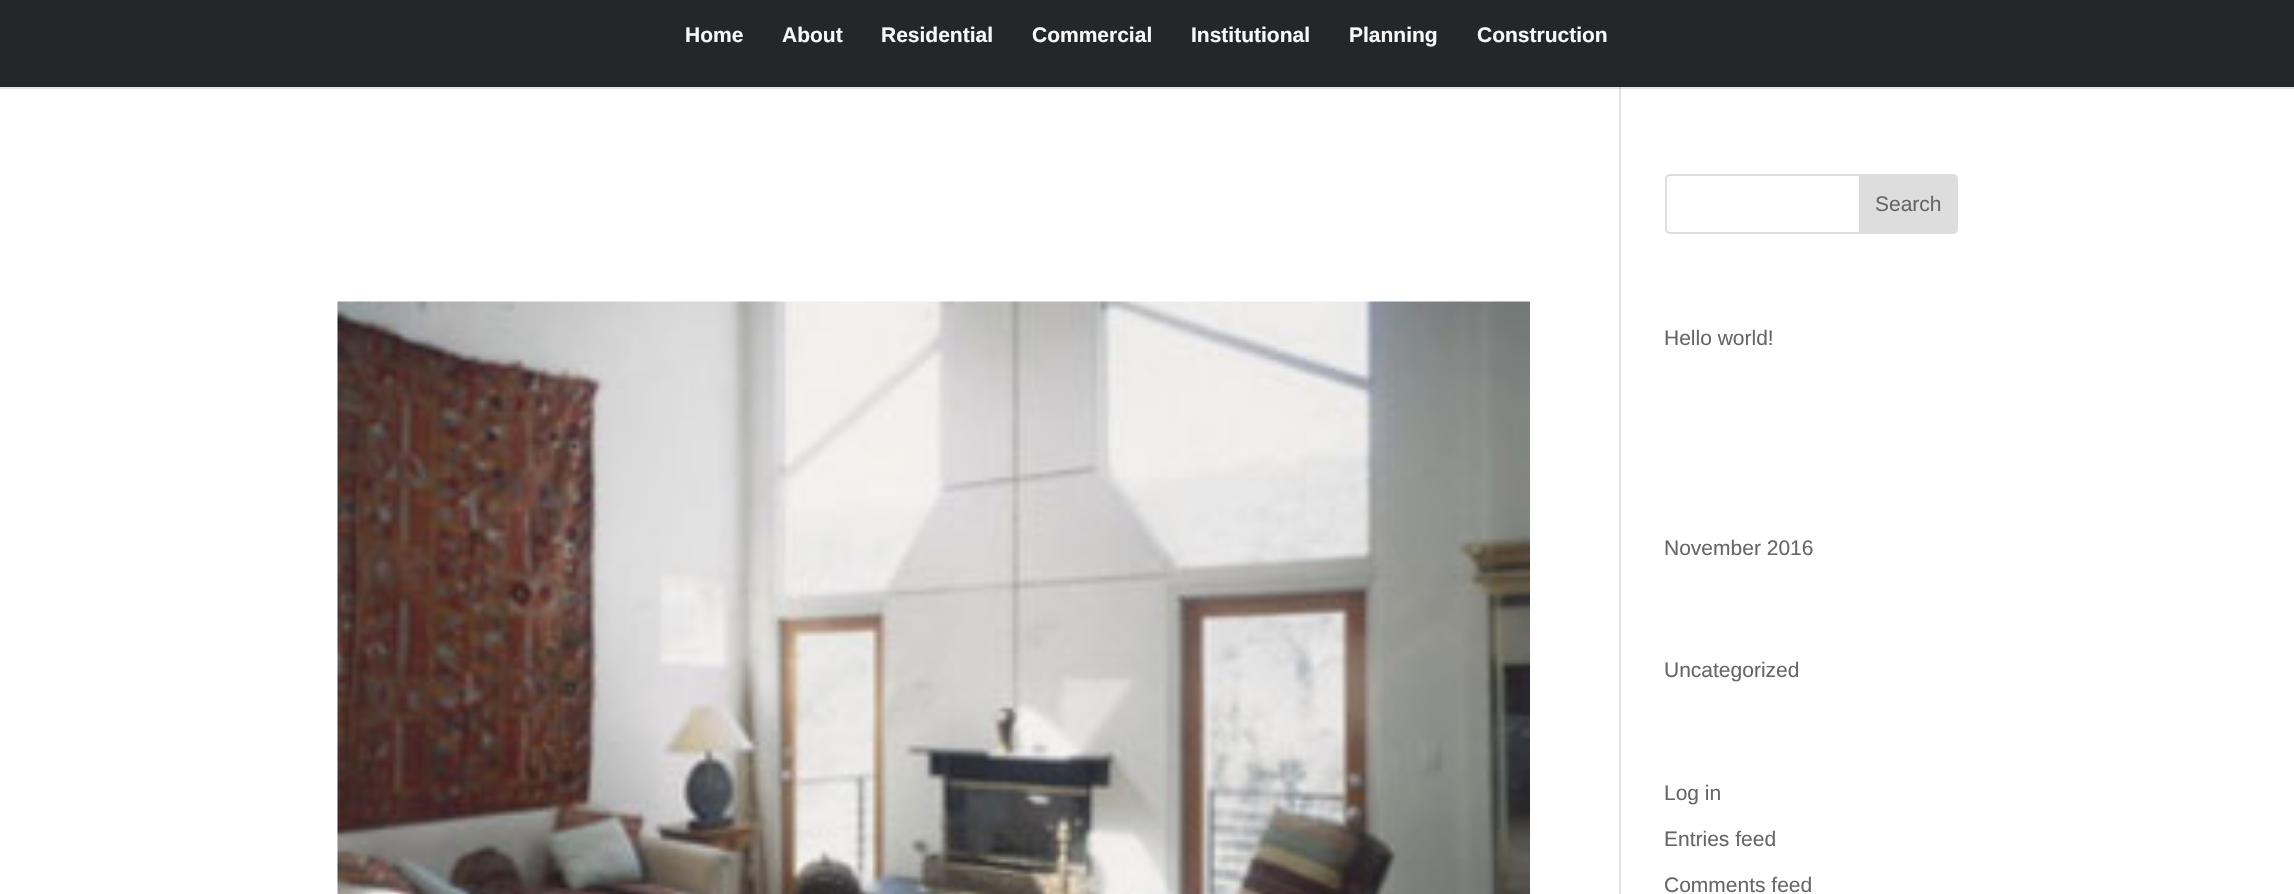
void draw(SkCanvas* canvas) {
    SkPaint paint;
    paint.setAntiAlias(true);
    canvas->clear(0xFF24272A);
    SkFont font1(fontMgr->matchFamilyStyle("Liberation Sans", SkFontStyle::Bold()), 21);
    font1.setSubpixel(true);
    paint.setColor(0xFFF7F7F7);
    canvas->drawString("Home", 685, 42, font1, paint);
    canvas->drawString("About", 782, 42, font1, paint);
    canvas->drawString("Residential", 881, 42, font1, paint);
    canvas->drawString("Commercial", 1032, 42, font1, paint);
    canvas->drawString("Institutional", 1191, 42, font1, paint);
    canvas->drawString("Planning", 1349, 42, font1, paint);
    canvas->drawString("Construction", 1477, 42, font1, paint);
    paint.setColor(0xFFFFFFFF);
    canvas->drawRect(SkRect::MakeXYWH(0, 89, 2294, 805), paint);
    paint.setColor(0xFFE6E6E6);
    canvas->drawRect(SkRect::MakeXYWH(0, 87, 2294, 2), paint);
    paint.setColor(0xFFE2E2E2);
    canvas->drawRect(SkRect::MakeXYWH(1619, 87, 2, 807), paint);
    paint.setColor(0xFFCBCBCB);
    canvas->drawRect(SkRect::MakeXYWH(1619, 87, 2, 2), paint);
    canvas->drawImageRect(SkImages::DeferredFromEncodedData(SkData::MakeFromFileName("img1.png")), SkRect::MakeXYWH(337, 301, 1193, 593), SkSamplingOptions());
    paint.setStyle(SkPaint::kStroke_Style);
    paint.setStrokeWidth(2);
    paint.setColor(0xFFDDDDDD);
    canvas->drawRoundRect(SkRect::MakeXYWH(1666, 175, 291, 58), 4, 4, paint);
    paint.setStyle(SkPaint::kFill_Style);
    canvas->drawPath(SkPathBuilder().moveTo(1860, 175).lineTo(1953, 175).cubicTo(1955, 175, 1957, 177, 1957, 179).lineTo(1957, 229).cubicTo(1957, 231, 1955, 233, 1953, 233).lineTo(1860, 233).close().detach(), paint);
    paint.setStyle(SkPaint::kStroke_Style);
    canvas->drawPath(SkPathBuilder().moveTo(1860, 175).lineTo(1953, 175).cubicTo(1955, 175, 1957, 177, 1957, 179).lineTo(1957, 229).cubicTo(1957, 231, 1955, 233, 1953, 233).lineTo(1860, 233).close().detach(), paint);
    SkFont font2(fontMgr->matchFamilyStyle("Liberation Sans", SkFontStyle::Normal()), 21);
    font2.setSubpixel(true);
    paint.setStyle(SkPaint::kFill_Style);
    paint.setColor(0xFF666666);
    canvas->drawString("Search", 1875, 211, font2, paint);
    canvas->drawString("Hello world!", 1664, 345, font2, paint);
    canvas->drawString("November 2016", 1664, 555, font2, paint);
    canvas->drawString("Uncategorized", 1664, 677, font2, paint);
    canvas->drawString("Log in", 1664, 800, font2, paint);
    canvas->drawString("Entries feed", 1664, 846, font2, paint);
    canvas->drawString("Comments feed", 1664, 892, font2, paint);
}
